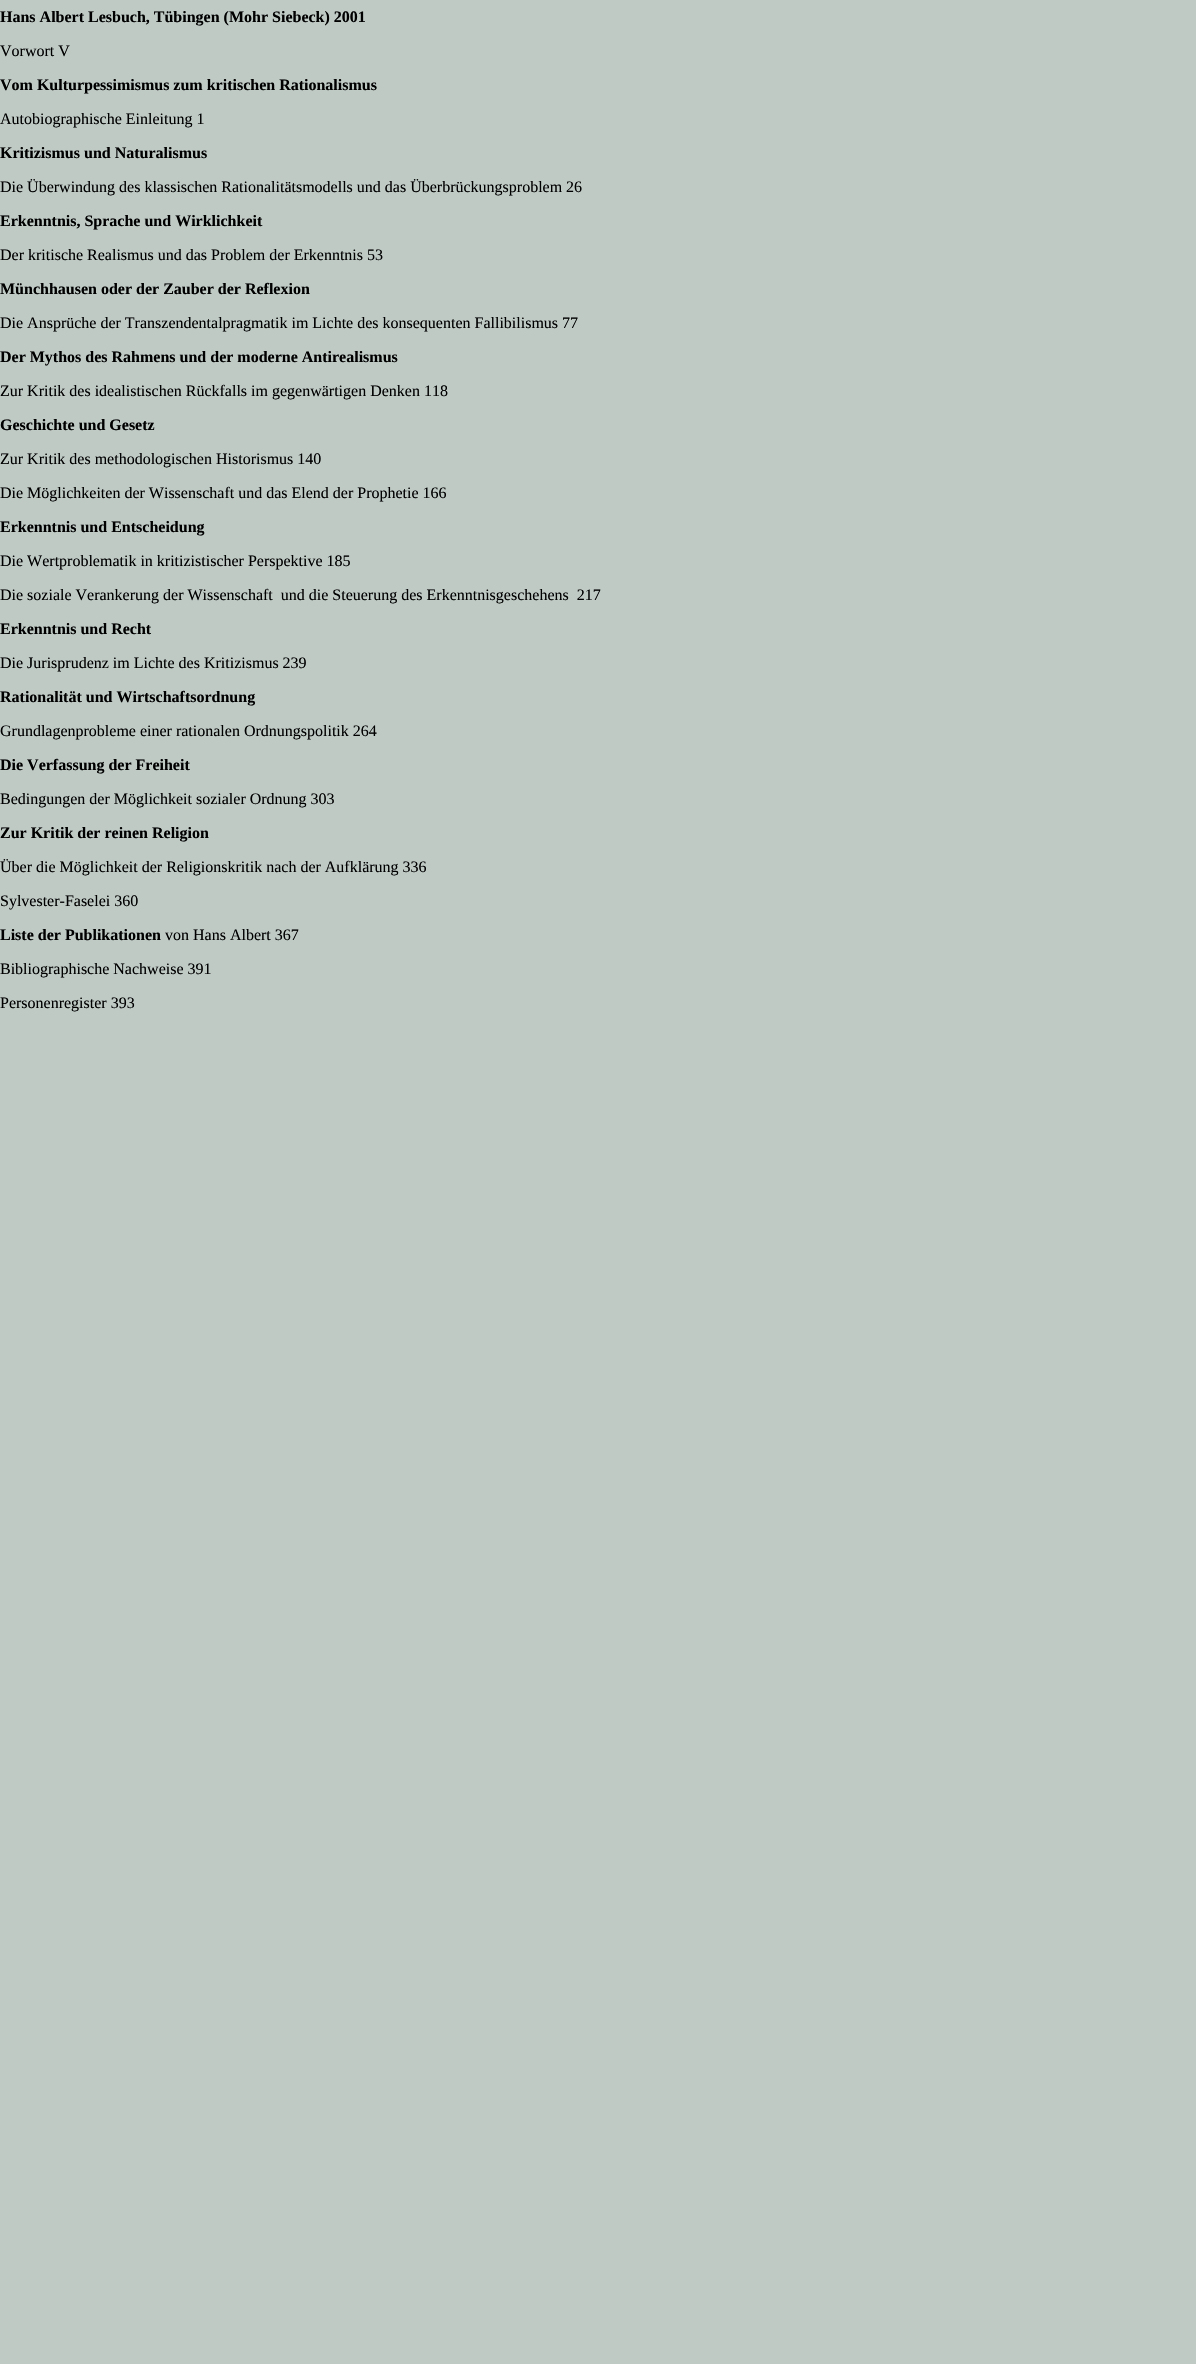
void draw(SkCanvas* canvas) {
    SkPaint paint;
    paint.setAntiAlias(true);
    canvas->clear(0xFFBFCAC5);
    SkFont font1(fontMgr->matchFamilyStyle("Liberation Serif", SkFontStyle::Bold()), 16);
    font1.setSubpixel(true);
    paint.setColor(0xFF000000);
    canvas->drawString("Hans Albert Lesbuch, Tübingen (Mohr Siebeck) 2001", 0, 22, font1, paint);
    SkFont font2(fontMgr->matchFamilyStyle("Liberation Serif", SkFontStyle::Normal()), 16);
    font2.setSubpixel(true);
    canvas->drawString("Vorwort V", 0, 56, font2, paint);
    canvas->drawString("Vom Kulturpessimismus zum kritischen Rationalismus", 0, 90, font1, paint);
    canvas->drawString("Autobiographische Einleitung 1", 0, 124, font2, paint);
    canvas->drawString("Kritizismus und Naturalismus", 0, 158, font1, paint);
    canvas->drawString("Die Überwindung des klassischen Rationalitätsmodells und das Überbrückungsproblem 26", 0, 192, font2, paint);
    canvas->drawString("Erkenntnis, Sprache und Wirklichkeit", 0, 226, font1, paint);
    canvas->drawString("Der kritische Realismus und das Problem der Erkenntnis 53", 0, 260, font2, paint);
    canvas->drawString("Münchhausen oder der Zauber der Reflexion", 0, 294, font1, paint);
    canvas->drawString("Die Ansprüche der Transzendentalpragmatik im Lichte des konsequenten Fallibilismus 77", 0, 328, font2, paint);
    canvas->drawString("Der Mythos des Rahmens und der moderne Antirealismus", 0, 362, font1, paint);
    canvas->drawString("Zur Kritik des idealistischen Rückfalls im gegenwärtigen Denken 118", 0, 396, font2, paint);
    canvas->drawString("Geschichte und Gesetz", 0, 430, font1, paint);
    canvas->drawString("Zur Kritik des methodologischen Historismus 140", 0, 464, font2, paint);
    canvas->drawString("Die Möglichkeiten der Wissenschaft und das Elend der Prophetie 166", 0, 498, font2, paint);
    canvas->drawString("Erkenntnis und Entscheidung", 0, 532, font1, paint);
    canvas->drawString("Die Wertproblematik in kritizistischer Perspektive 185", 0, 566, font2, paint);
    canvas->drawString("Die soziale Verankerung der Wissenschaft  und die Steuerung des Erkenntnisgeschehens  217", 0, 600, font2, paint);
    canvas->drawString("Erkenntnis und Recht", 0, 634, font1, paint);
    canvas->drawString("Die Jurisprudenz im Lichte des Kritizismus 239", 0, 668, font2, paint);
    canvas->drawString("Rationalität und Wirtschaftsordnung", 0, 702, font1, paint);
    canvas->drawString("Grundlagenprobleme einer rationalen Ordnungspolitik 264", 0, 736, font2, paint);
    canvas->drawString("Die Verfassung der Freiheit", 0, 770, font1, paint);
    canvas->drawString("Bedingungen der Möglichkeit sozialer Ordnung 303", 0, 804, font2, paint);
    canvas->drawString("Zur Kritik der reinen Religion", 0, 838, font1, paint);
    canvas->drawString("Über die Möglichkeit der Religionskritik nach der Aufklärung 336", 0, 872, font2, paint);
    canvas->drawString("Sylvester-Faselei 360", 0, 906, font2, paint);
    canvas->drawString("Liste der Publikationen", 0, 940, font1, paint);
    canvas->drawString("von Hans Albert 367", 165, 940, font2, paint);
    canvas->drawString("Bibliographische Nachweise 391", 0, 974, font2, paint);
    canvas->drawString("Personenregister 393", 0, 1008, font2, paint);
}
